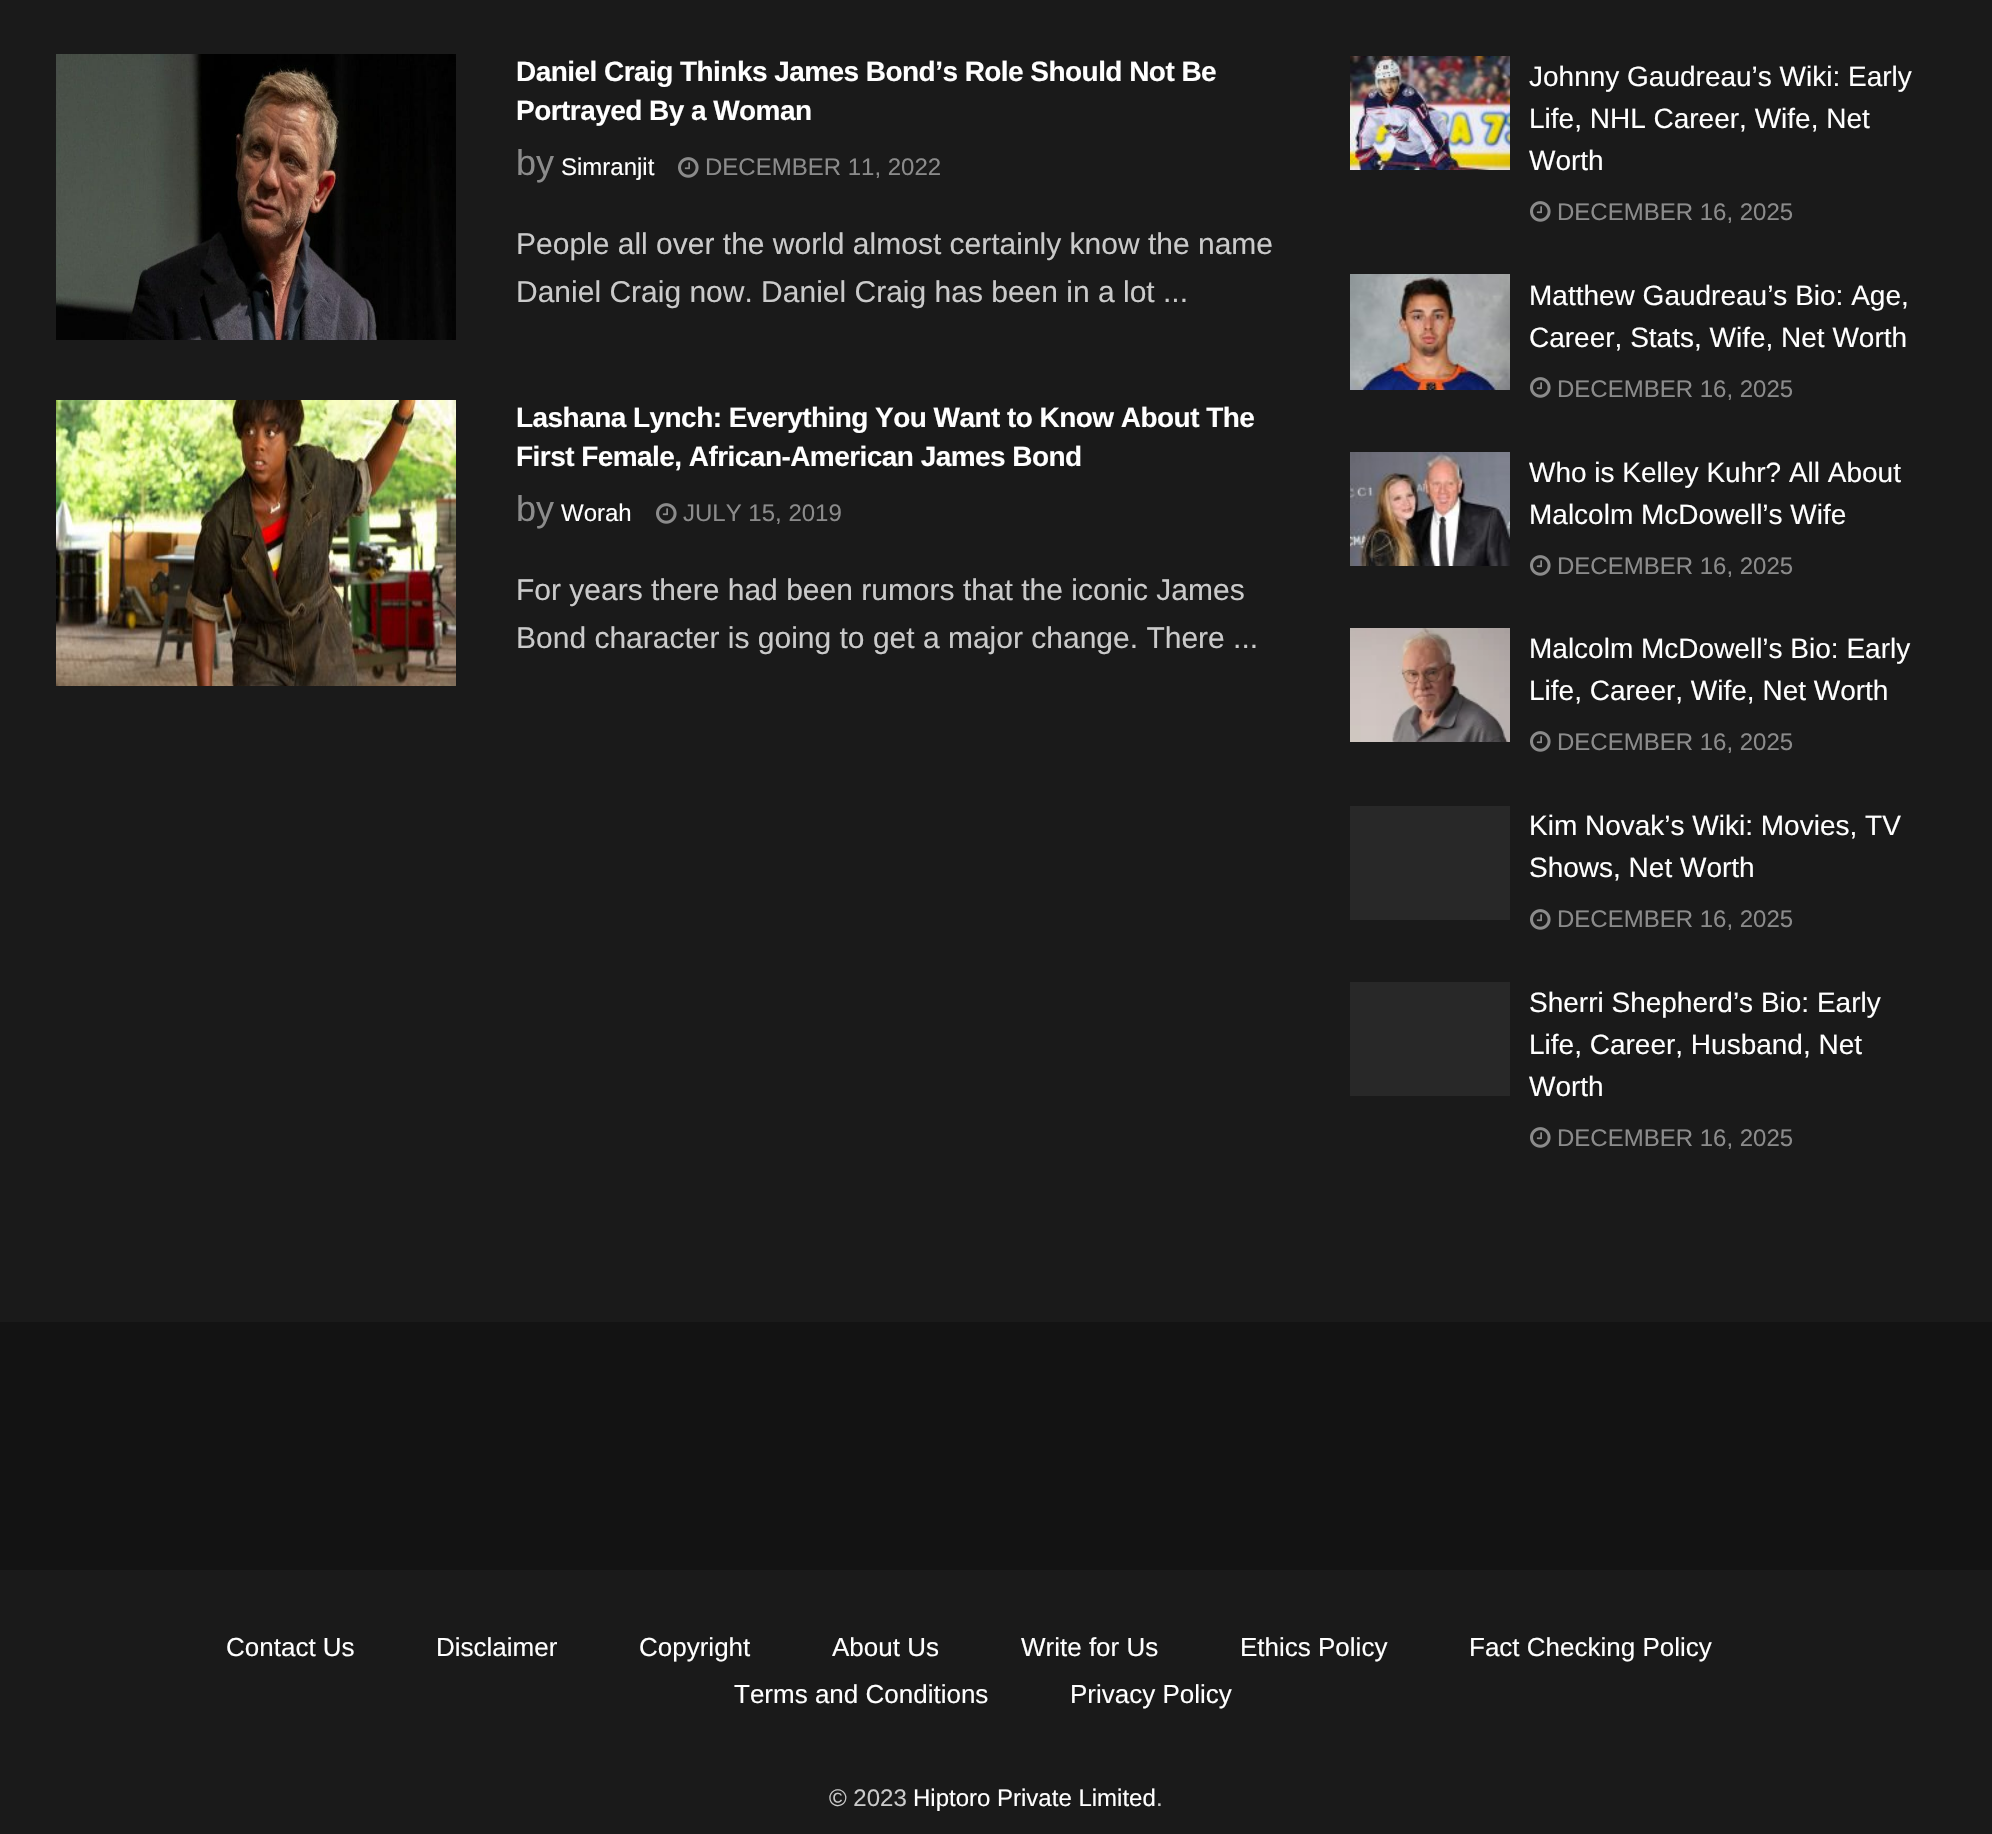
void draw(SkCanvas* canvas) {
    SkPaint paint;
    paint.setAntiAlias(true);
    auto spacedText = [&](const char* s, float x, float y, const SkFont& font, const SkPaint& ink, float letter, float word) {
        std::vector<SkGlyphID> glyphs(font.countText(s, strlen(s), SkTextEncoding::kUTF8));
        std::vector<float> xs(glyphs.size());
        font.textToGlyphs(s, strlen(s), SkTextEncoding::kUTF8, glyphs);
        font.getXPos(glyphs, xs, x);
        float extra = 0;
        for (size_t i = 0; i < glyphs.size(); i++) {
            xs[i] += extra;
            extra += letter + word * (glyphs[i] == font.unicharToGlyph(' '));
        }
        canvas->drawTextBlob(SkTextBlob::MakeFromPosHGlyphs(glyphs, xs, y, font), 0, 0, ink);
    };
    canvas->clear(0xFF1A1A1A);
    canvas->drawImageRect(SkImages::DeferredFromEncodedData(SkData::MakeFromFileName("img1.png")), SkRect::MakeXYWH(56, 54, 400, 286), SkSamplingOptions());
    SkFont font1(fontMgr->matchFamilyStyle("Liberation Sans", SkFontStyle::Bold()), 28);
    font1.setSubpixel(true);
    paint.setColor(0xFFFFFFFF);
    spacedText("Daniel Craig Thinks James Bond’s Role Should Not Be", 516, 81, font1, paint, -0.55f, 0);
    spacedText("Portrayed By a Woman", 516, 120, font1, paint, -0.55f, 0);
    SkFont font2(fontMgr->matchFamilyStyle("Liberation Sans", SkFontStyle::Normal()), 36);
    font2.setSubpixel(true);
    paint.setColor(0xFF8B8B8B);
    canvas->drawString("by", 516, 175, font2, paint);
    SkFont font3(fontMgr->matchFamilyStyle("Liberation Sans", SkFontStyle::Normal()), 24);
    font3.setSubpixel(true);
    paint.setColor(0xFFFFFFFF);
    canvas->drawString("Simranjit", 561, 175, font3, paint);
    canvas->drawImageRect(SkImages::DeferredFromEncodedData(SkData::MakeFromFileName("img2.png")), SkRect::MakeXYWH(678, 157, 21, 21), SkSamplingOptions());
    paint.setColor(0xFF8B8B8B);
    canvas->drawString("DECEMBER 11, 2022", 705, 175, font3, paint);
    SkFont font4(fontMgr->matchFamilyStyle("Liberation Sans", SkFontStyle::Normal()), 30);
    font4.setSubpixel(true);
    paint.setColor(0xFFCACACA);
    canvas->drawString("People all over the world almost certainly know the name", 516, 254, font4, paint);
    canvas->drawString("Daniel Craig now. Daniel Craig has been in a lot ...", 516, 302, font4, paint);
    canvas->drawImageRect(SkImages::DeferredFromEncodedData(SkData::MakeFromFileName("img3.png")), SkRect::MakeXYWH(56, 400, 400, 286), SkSamplingOptions());
    paint.setColor(0xFFFFFFFF);
    spacedText("Lashana Lynch: Everything You Want to Know About The", 516, 427, font1, paint, -0.55f, 0);
    spacedText("First Female, African-American James Bond", 516, 466, font1, paint, -0.55f, 0);
    paint.setColor(0xFF8B8B8B);
    canvas->drawString("by", 516, 521, font2, paint);
    paint.setColor(0xFFFFFFFF);
    canvas->drawString("Worah", 561, 521, font3, paint);
    canvas->drawImageRect(SkImages::DeferredFromEncodedData(SkData::MakeFromFileName("img2.png")), SkRect::MakeXYWH(656, 503, 21, 21), SkSamplingOptions());
    paint.setColor(0xFF8B8B8B);
    canvas->drawString("JULY 15, 2019", 683, 521, font3, paint);
    paint.setColor(0xFFCACACA);
    canvas->drawString("For years there had been rumors that the iconic James", 516, 600, font4, paint);
    canvas->drawString("Bond character is going to get a major change. There ...", 516, 648, font4, paint);
    canvas->drawImageRect(SkImages::DeferredFromEncodedData(SkData::MakeFromFileName("img4.png")), SkRect::MakeXYWH(1350, 56, 160, 114), SkSamplingOptions());
    SkFont font5(fontMgr->matchFamilyStyle("Liberation Sans", SkFontStyle::Normal()), 28);
    font5.setSubpixel(true);
    paint.setColor(0xFFFFFFFF);
    canvas->drawString("Johnny Gaudreau’s Wiki: Early", 1529, 86, font5, paint);
    canvas->drawString("Life, NHL Career, Wife, Net", 1529, 128, font5, paint);
    canvas->drawString("Worth", 1529, 170, font5, paint);
    canvas->drawImageRect(SkImages::DeferredFromEncodedData(SkData::MakeFromFileName("img2.png")), SkRect::MakeXYWH(1530, 201, 21, 21), SkSamplingOptions());
    paint.setColor(0xFF8B8B8B);
    canvas->drawString("DECEMBER 16, 2025", 1557, 220, font3, paint);
    canvas->drawImageRect(SkImages::DeferredFromEncodedData(SkData::MakeFromFileName("img5.png")), SkRect::MakeXYWH(1350, 274, 160, 116), SkSamplingOptions());
    paint.setColor(0xFFFFFFFF);
    canvas->drawString("Matthew Gaudreau’s Bio: Age,", 1529, 305, font5, paint);
    canvas->drawString("Career, Stats, Wife, Net Worth", 1529, 347, font5, paint);
    canvas->drawImageRect(SkImages::DeferredFromEncodedData(SkData::MakeFromFileName("img2.png")), SkRect::MakeXYWH(1530, 377, 21, 21), SkSamplingOptions());
    paint.setColor(0xFF8B8B8B);
    canvas->drawString("DECEMBER 16, 2025", 1557, 397, font3, paint);
    canvas->drawImageRect(SkImages::DeferredFromEncodedData(SkData::MakeFromFileName("img6.png")), SkRect::MakeXYWH(1350, 452, 160, 114), SkSamplingOptions());
    paint.setColor(0xFFFFFFFF);
    canvas->drawString("Who is Kelley Kuhr? All About", 1529, 482, font5, paint);
    canvas->drawString("Malcolm McDowell’s Wife", 1529, 524, font5, paint);
    canvas->drawImageRect(SkImages::DeferredFromEncodedData(SkData::MakeFromFileName("img2.png")), SkRect::MakeXYWH(1530, 555, 21, 21), SkSamplingOptions());
    paint.setColor(0xFF8B8B8B);
    canvas->drawString("DECEMBER 16, 2025", 1557, 574, font3, paint);
    canvas->drawImageRect(SkImages::DeferredFromEncodedData(SkData::MakeFromFileName("img7.png")), SkRect::MakeXYWH(1350, 628, 160, 114), SkSamplingOptions());
    paint.setColor(0xFFFFFFFF);
    canvas->drawString("Malcolm McDowell’s Bio: Early", 1529, 658, font5, paint);
    canvas->drawString("Life, Career, Wife, Net Worth", 1529, 700, font5, paint);
    canvas->drawImageRect(SkImages::DeferredFromEncodedData(SkData::MakeFromFileName("img2.png")), SkRect::MakeXYWH(1530, 731, 21, 21), SkSamplingOptions());
    paint.setColor(0xFF8B8B8B);
    canvas->drawString("DECEMBER 16, 2025", 1557, 750, font3, paint);
    paint.setColor(0xFF282828);
    canvas->drawRect(SkRect::MakeXYWH(1350, 806, 160, 114), paint);
    paint.setColor(0xFFFFFFFF);
    canvas->drawString("Kim Novak’s Wiki: Movies, TV", 1529, 835, font5, paint);
    canvas->drawString("Shows, Net Worth", 1529, 877, font5, paint);
    canvas->drawImageRect(SkImages::DeferredFromEncodedData(SkData::MakeFromFileName("img2.png")), SkRect::MakeXYWH(1530, 909, 21, 21), SkSamplingOptions());
    paint.setColor(0xFF8B8B8B);
    canvas->drawString("DECEMBER 16, 2025", 1557, 927, font3, paint);
    paint.setColor(0xFF282828);
    canvas->drawRect(SkRect::MakeXYWH(1350, 982, 160, 114), paint);
    paint.setColor(0xFFFFFFFF);
    canvas->drawString("Sherri Shepherd’s Bio: Early", 1529, 1012, font5, paint);
    canvas->drawString("Life, Career, Husband, Net", 1529, 1054, font5, paint);
    canvas->drawString("Worth", 1529, 1096, font5, paint);
    canvas->drawImageRect(SkImages::DeferredFromEncodedData(SkData::MakeFromFileName("img2.png")), SkRect::MakeXYWH(1530, 1127, 21, 21), SkSamplingOptions());
    paint.setColor(0xFF8B8B8B);
    canvas->drawString("DECEMBER 16, 2025", 1557, 1146, font3, paint);
    paint.setColor(0xFF131313);
    canvas->drawRect(SkRect::MakeXYWH(0, 1322, 1992, 248), paint);
    SkFont font6(fontMgr->matchFamilyStyle("Liberation Sans", SkFontStyle::Normal()), 26);
    font6.setSubpixel(true);
    paint.setColor(0xFFFFFFFF);
    canvas->drawString("Contact Us", 226, 1656, font6, paint);
    canvas->drawString("Disclaimer", 436, 1656, font6, paint);
    canvas->drawString("Copyright", 639, 1656, font6, paint);
    canvas->drawString("About Us", 832, 1656, font6, paint);
    canvas->drawString("Write for Us", 1021, 1656, font6, paint);
    canvas->drawString("Ethics Policy", 1240, 1656, font6, paint);
    canvas->drawString("Fact Checking Policy", 1469, 1656, font6, paint);
    canvas->drawString("Terms and Conditions", 734, 1703, font6, paint);
    canvas->drawString("Privacy Policy", 1070, 1703, font6, paint);
    paint.setColor(0xFFCACACA);
    canvas->drawString("© 2023", 829, 1806, font3, paint);
    paint.setColor(0xFFFFFFFF);
    canvas->drawString("Hiptoro Private Limited", 913, 1806, font3, paint);
    paint.setColor(0xFFCACACA);
    canvas->drawString(".", 1156, 1806, font3, paint);
}
